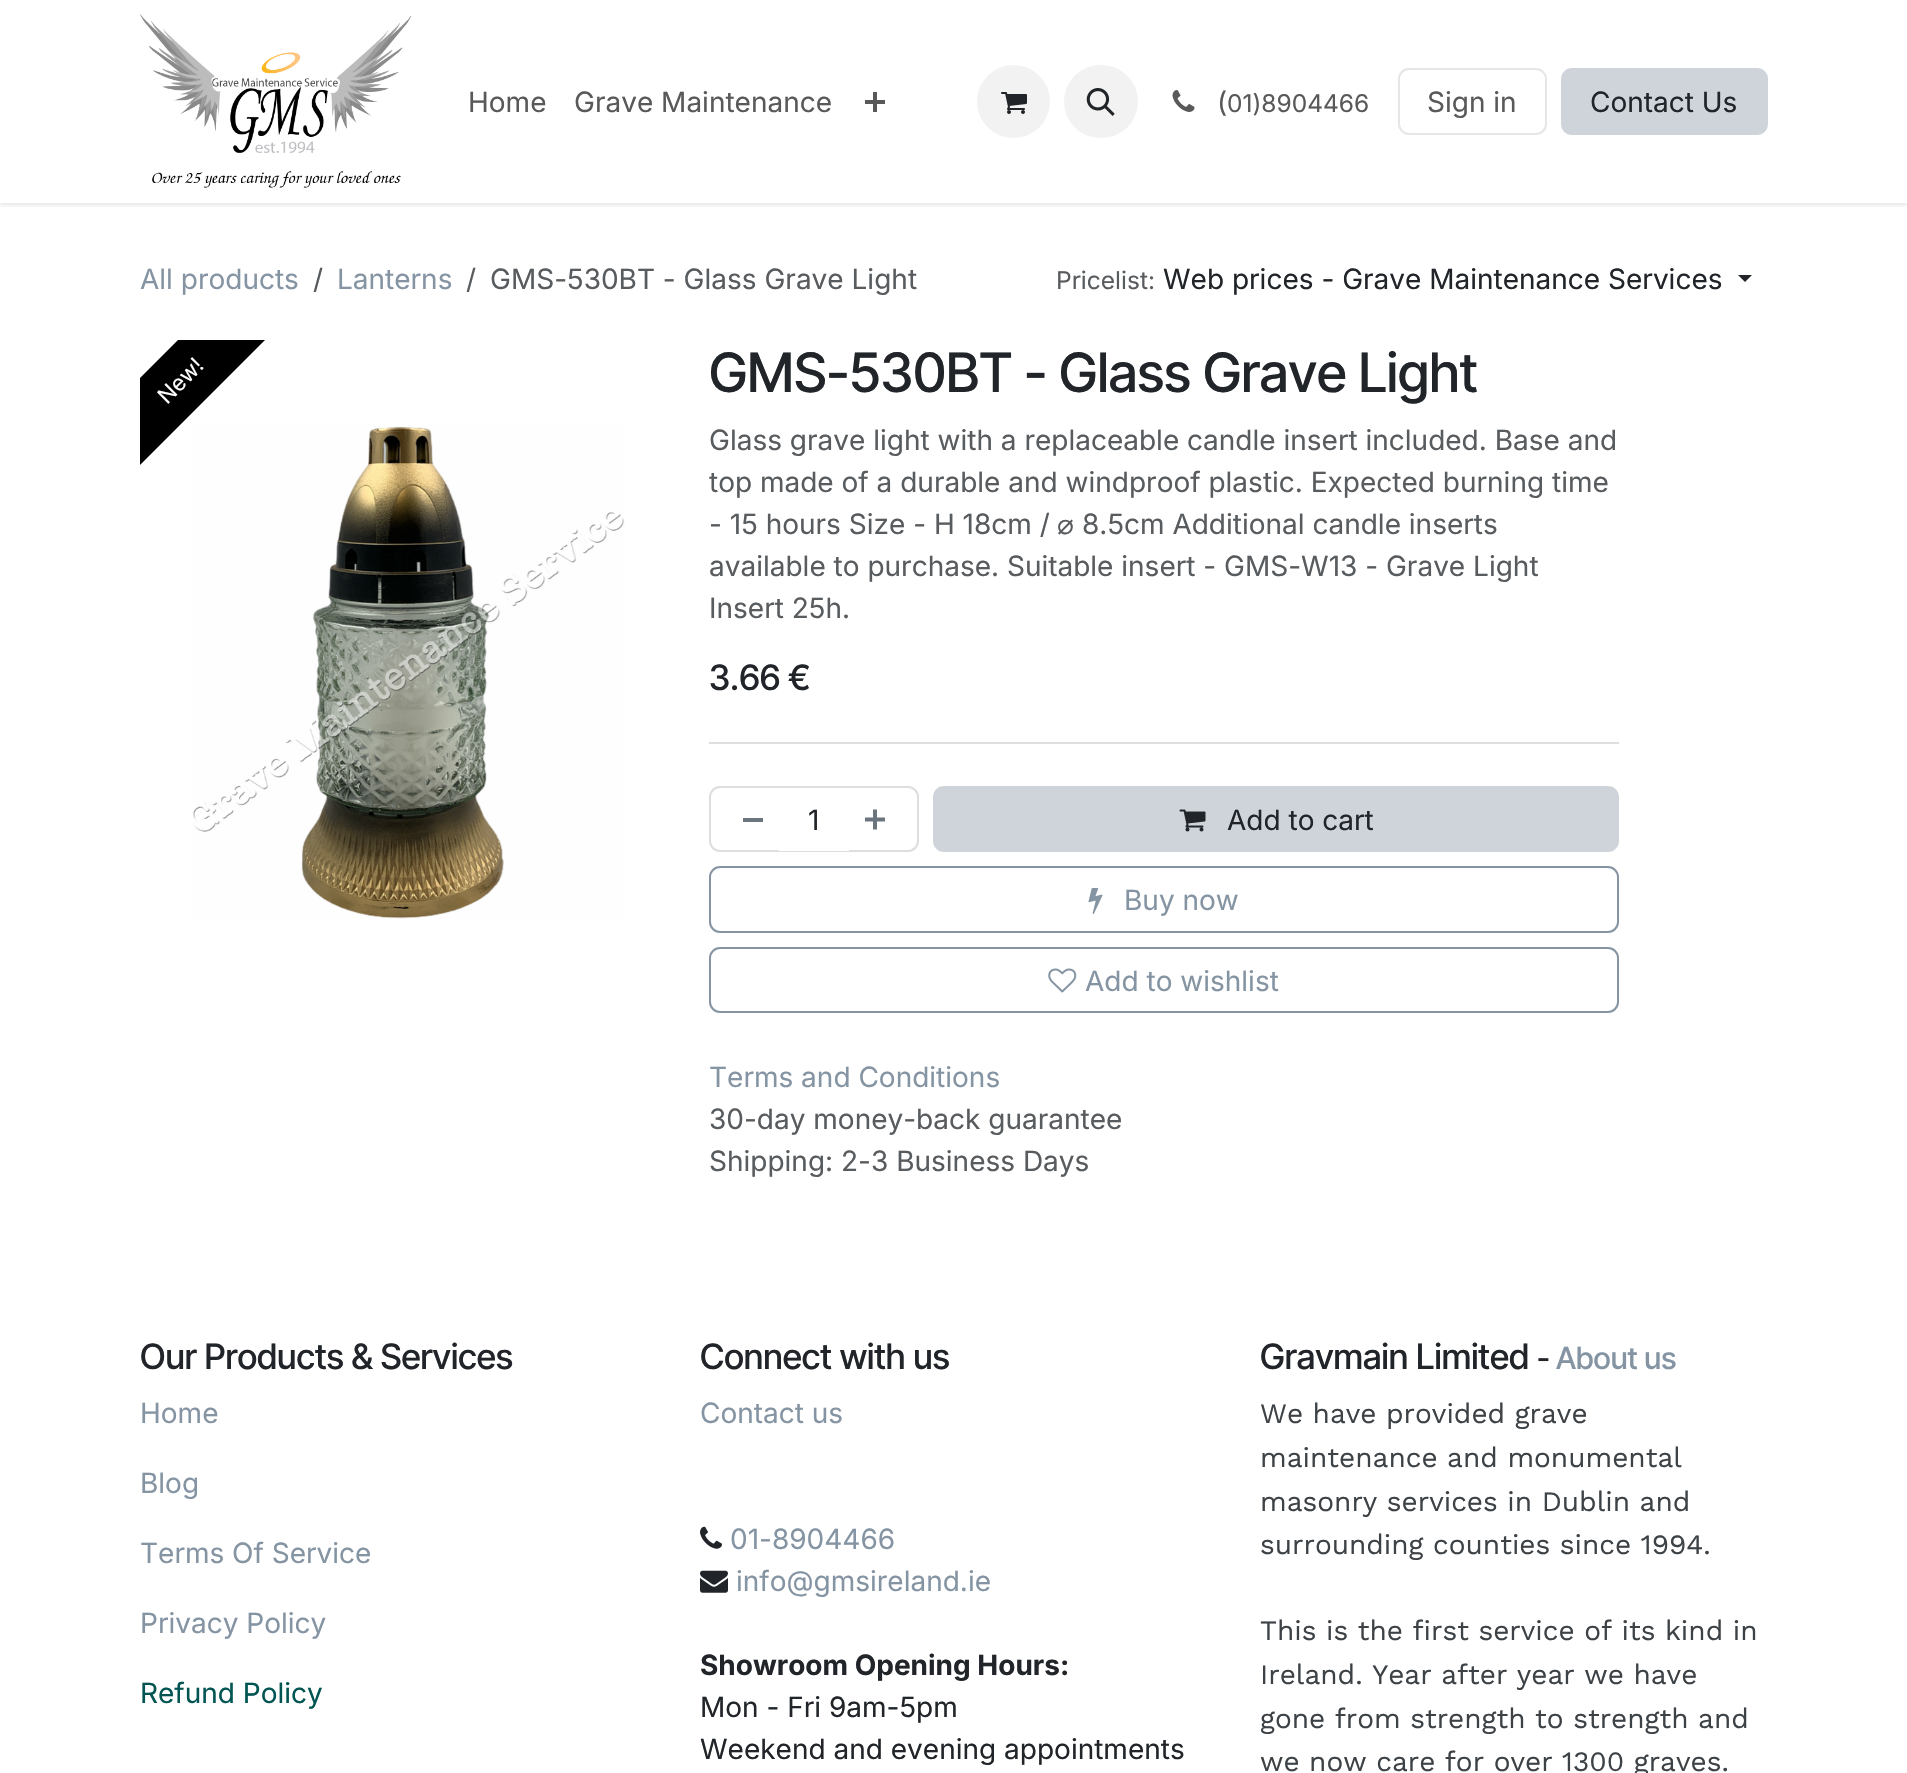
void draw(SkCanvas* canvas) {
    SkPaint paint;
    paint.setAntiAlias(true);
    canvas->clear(0xFFFFFFFF);
    canvas->save();
    canvas->clipRect(SkRect::MakeXYWH(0, 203, 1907, 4));
    paint.setColor(0x1A000000);
    paint.setMaskFilter(SkMaskFilter::MakeBlur(kNormal_SkBlurStyle, 2.5f));
    canvas->drawRect(SkRect::MakeXYWH(0, 2, 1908, 203), paint);
    paint.setMaskFilter(nullptr);
    canvas->restore();
    canvas->drawImageRect(SkImages::DeferredFromEncodedData(SkData::MakeFromFileName("img1.png")), SkRect::MakeXYWH(140, 14, 272, 174), SkSamplingOptions());
    SkFont font1(fontMgr->matchFamilyStyle("Inter", SkFontStyle::Normal()), 28);
    font1.setSubpixel(true);
    paint.setColor(0xFF595959);
    canvas->drawString("Home", 468, 112, font1, paint);
    canvas->drawString("Grave Maintenance", 574, 112, font1, paint);
    canvas->drawImageRect(SkImages::DeferredFromEncodedData(SkData::MakeFromFileName("img2.png")), SkRect::MakeXYWH(865, 92, 20, 20), SkSamplingOptions());
    paint.setColor(0xFFF2F2F2);
    canvas->drawCircle(1013.5f, 101.5f, 36.5f, paint);
    canvas->drawImageRect(SkImages::DeferredFromEncodedData(SkData::MakeFromFileName("img3.png")), SkRect::MakeXYWH(1001, 92, 26, 22), SkSamplingOptions());
    canvas->drawRoundRect(SkRect::MakeXYWH(1064, 65, 74, 73), 36.5f, 36.5f, paint);
    canvas->drawImageRect(SkImages::DeferredFromEncodedData(SkData::MakeFromFileName("img4.png")), SkRect::MakeXYWH(1086, 88, 29, 28), SkSamplingOptions());
    canvas->drawImageRect(SkImages::DeferredFromEncodedData(SkData::MakeFromFileName("img5.png")), SkRect::MakeXYWH(1172, 90, 23, 22), SkSamplingOptions());
    paint.setColor(0xFF595959);
    canvas->drawString("(", 1217, 112, font1, paint);
    SkFont font2(fontMgr->matchFamilyStyle("Inter", SkFontStyle::Normal()), 24.5f);
    font2.setSubpixel(true);
    canvas->drawString("01)8904466", 1227, 112, font2, paint);
    paint.setStyle(SkPaint::kStroke_Style);
    paint.setStrokeWidth(2);
    paint.setColor(0xFFE6E6E6);
    canvas->drawRoundRect(SkRect::MakeXYWH(1399, 69, 147, 65), 10, 10, paint);
    paint.setStyle(SkPaint::kFill_Style);
    paint.setColor(0xFF595959);
    canvas->drawString("Sign in", 1427, 112, font1, paint);
    paint.setColor(0xFFCED4DA);
    canvas->drawRoundRect(SkRect::MakeXYWH(1562, 69, 205, 65), 10, 10, paint);
    paint.setStyle(SkPaint::kStroke_Style);
    canvas->drawRoundRect(SkRect::MakeXYWH(1562, 69, 205, 65), 10, 10, paint);
    paint.setStyle(SkPaint::kFill_Style);
    paint.setColor(0xFF212529);
    canvas->drawString("Contact Us", 1590, 112, font1, paint);
    paint.setColor(0xFF8594A3);
    canvas->drawString("All products", 140, 289, font1, paint);
    paint.setColor(0xFF595C5F);
    canvas->drawString("/", 313, 289, font1, paint);
    paint.setColor(0xFF8594A3);
    canvas->drawString("Lanterns", 337, 289, font1, paint);
    paint.setColor(0xFF595C5F);
    canvas->drawString("/", 466, 289, font1, paint);
    canvas->drawString("GMS-530BT - Glass Grave Light", 490, 289, font1, paint);
    canvas->drawString("Pricelist:", 1056, 289, font2, paint);
    paint.setColor(0xFF212529);
    canvas->drawString("Web prices - Grave Maintenance Services", 1163, 289, font1, paint);
    canvas->drawPath(SkPathBuilder().moveTo(1738, 275).lineTo(1752, 275).lineTo(1745, 282).close().detach(), paint);
    canvas->drawImageRect(SkImages::DeferredFromEncodedData(SkData::MakeFromFileName("img6.png")), SkRect::MakeXYWH(193, 426, 432, 493), SkSamplingOptions());
    canvas->save();
    canvas->clipRect(SkRect::MakeXYWH(140, 340, 543, 670));
    paint.setColor(0xFF000000);
    canvas->drawPath(SkPathBuilder().moveTo(16, 502).lineTo(302, 216).lineTo(346, 259).lineTo(60, 545).close().detach(), paint);
    canvas->restore();
    SkFont font3(fontMgr->matchFamilyStyle("Inter", SkFontStyle::Normal()), 22);
    font3.setSubpixel(true);
    paint.setColor(0xFFFFFFFF);
    canvas->save();
    canvas->rotate(-45, 167, 405);
    canvas->drawString("New!", 167, 405, font3, paint);
    canvas->restore();
    SkFont font4(fontMgr->matchFamilyStyle("Inter Tight", SkFontStyle(500, SkFontStyle::kNormal_Width, SkFontStyle::kUpright_Slant)), 54.25f);
    font4.setSubpixel(true);
    paint.setColor(0xFF212529);
    canvas->drawString("GMS-530BT - Glass Grave Light", 709, 392, font4, paint);
    paint.setColor(0xFF595C5F);
    canvas->drawString("Glass grave light with a replaceable candle insert included. Base and", 709, 450, font1, paint);
    canvas->drawString("top made of a durable and windproof plastic. Expected burning time", 709, 492, font1, paint);
    canvas->drawString("- 15 hours Size - H 18cm /", 709, 534, font1, paint);
    SkFont font5(fontMgr->matchFamilyStyle("DejaVu Sans", SkFontStyle::Normal()), 28);
    font5.setSubpixel(true);
    canvas->drawString("⌀", 1057, 534, font5, paint);
    canvas->drawString("8.5cm Additional candle inserts", 1082, 534, font1, paint);
    canvas->drawString("available to purchase. Suitable insert - GMS-W13 - Grave Light", 709, 576, font1, paint);
    canvas->drawString("Insert 25h.", 709, 618, font1, paint);
    SkFont font6(fontMgr->matchFamilyStyle("Inter Tight", SkFontStyle(500, SkFontStyle::kNormal_Width, SkFontStyle::kUpright_Slant)), 35);
    font6.setSubpixel(true);
    paint.setColor(0xFF212529);
    canvas->drawString("3.66 €", 709, 690, font6, paint);
    paint.setColor(0xFFDEDEDF);
    canvas->drawRect(SkRect::MakeXYWH(709, 742, 910, 2), paint);
    paint.setStyle(SkPaint::kStroke_Style);
    canvas->drawRoundRect(SkRect::MakeXYWH(710, 787, 208, 64), 10, 10, paint);
    paint.setStyle(SkPaint::kFill_Style);
    paint.setColor(0xFF6C757D);
    canvas->drawRect(SkRect::MakeXYWH(743, 818, 20, 4), paint);
    paint.setColor(0xFFFFFFFF);
    canvas->drawRect(SkRect::MakeXYWH(779, 850, 70, 1), paint);
    paint.setColor(0xFF212529);
    canvas->drawString("1", 808, 830, font1, paint);
    canvas->drawImageRect(SkImages::DeferredFromEncodedData(SkData::MakeFromFileName("img7.png")), SkRect::MakeXYWH(865, 809, 20, 21), SkSamplingOptions());
    paint.setColor(0xFFCED4DA);
    canvas->drawRoundRect(SkRect::MakeXYWH(934, 787, 684, 64), 10, 10, paint);
    paint.setStyle(SkPaint::kStroke_Style);
    canvas->drawRoundRect(SkRect::MakeXYWH(934, 787, 684, 64), 10, 10, paint);
    canvas->drawImageRect(SkImages::DeferredFromEncodedData(SkData::MakeFromFileName("img8.png")), SkRect::MakeXYWH(1179, 809, 27, 23), SkSamplingOptions());
    paint.setStyle(SkPaint::kFill_Style);
    paint.setColor(0xFF212529);
    canvas->drawString("Add to cart", 1227, 830, font1, paint);
    paint.setStyle(SkPaint::kStroke_Style);
    paint.setColor(0xFF8594A3);
    canvas->drawRoundRect(SkRect::MakeXYWH(710, 867, 908, 65), 10, 10, paint);
    canvas->drawImageRect(SkImages::DeferredFromEncodedData(SkData::MakeFromFileName("img9.png")), SkRect::MakeXYWH(1088, 888, 15, 26), SkSamplingOptions());
    paint.setStyle(SkPaint::kFill_Style);
    canvas->drawString("Buy now", 1124, 910, font1, paint);
    paint.setStyle(SkPaint::kStroke_Style);
    canvas->drawRoundRect(SkRect::MakeXYWH(710, 948, 908, 64), 10, 10, paint);
    canvas->drawImageRect(SkImages::DeferredFromEncodedData(SkData::MakeFromFileName("img10.png")), SkRect::MakeXYWH(1048, 968, 29, 25), SkSamplingOptions());
    paint.setStyle(SkPaint::kFill_Style);
    canvas->drawString("Add to wishlist", 1085, 991, font1, paint);
    canvas->drawString("Terms and Conditions", 709, 1087, font1, paint);
    paint.setColor(0xFF595C5F);
    canvas->drawString("30-day money-back guarantee", 709, 1129, font1, paint);
    canvas->drawString("Shipping: 2-3 Business Days", 709, 1171, font1, paint);
    paint.setColor(0xFF212529);
    canvas->drawString("Our Products & Services", 140, 1369, font6, paint);
    paint.setColor(0xFF8594A3);
    canvas->drawString("Home", 140, 1423, font1, paint);
    canvas->drawString("Blog", 140, 1493, font1, paint);
    canvas->drawString("Terms Of Service", 140, 1563, font1, paint);
    canvas->drawString("Privacy Policy", 140, 1633, font1, paint);
    paint.setColor(0xFF005452);
    canvas->drawString("Refund Policy", 140, 1703, font1, paint);
    paint.setColor(0xFF212529);
    canvas->drawString("Connect with us", 700, 1369, font6, paint);
    paint.setColor(0xFF8594A3);
    canvas->drawString("Contact us", 700, 1423, font1, paint);
    canvas->drawImageRect(SkImages::DeferredFromEncodedData(SkData::MakeFromFileName("img11.png")), SkRect::MakeXYWH(700, 1526, 22, 23), SkSamplingOptions());
    canvas->drawString("01-8904466", 730, 1549, font1, paint);
    canvas->drawImageRect(SkImages::DeferredFromEncodedData(SkData::MakeFromFileName("img12.png")), SkRect::MakeXYWH(700, 1570, 28, 23), SkSamplingOptions());
    canvas->drawString("info@gmsireland.ie", 736, 1591, font1, paint);
    SkFont font7(fontMgr->matchFamilyStyle("Inter", SkFontStyle::Bold()), 28);
    font7.setSubpixel(true);
    paint.setColor(0xFF212529);
    canvas->drawString("Showroom Opening Hours:", 700, 1675, font7, paint);
    canvas->drawString("Mon - Fri 9am-5pm", 700, 1717, font1, paint);
    canvas->drawString("Weekend and evening appointments", 700, 1759, font1, paint);
    canvas->drawString("Gravmain Limited", 1260, 1369, font6, paint);
    SkFont font8(fontMgr->matchFamilyStyle("Inter Tight", SkFontStyle(500, SkFontStyle::kNormal_Width, SkFontStyle::kUpright_Slant)), 30.5f);
    font8.setSubpixel(true);
    canvas->drawString("-", 1537, 1369, font8, paint);
    paint.setColor(0xFF8594A3);
    canvas->drawString("About us", 1556, 1369, font8, paint);
    SkFont font9(fontMgr->matchFamilyStyle("Work Sans", SkFontStyle::Normal()), 28);
    font9.setSubpixel(true);
    paint.setColor(0xFF3D4246);
    canvas->drawString("We have provided grave", 1260, 1423, font9, paint);
    canvas->drawString("maintenance and monumental", 1260, 1467, font9, paint);
    canvas->drawString("masonry services in Dublin and", 1260, 1511, font9, paint);
    canvas->drawString("surrounding counties since 1994.", 1260, 1554, font9, paint);
    canvas->drawString("This is the first service of its kind in", 1260, 1640, font9, paint);
    canvas->drawString("Ireland. Year after year we have", 1260, 1684, font9, paint);
    canvas->drawString("gone from strength to strength and", 1260, 1728, font9, paint);
    canvas->drawString("we now care for over 1300 graves.", 1260, 1771, font9, paint);
}
